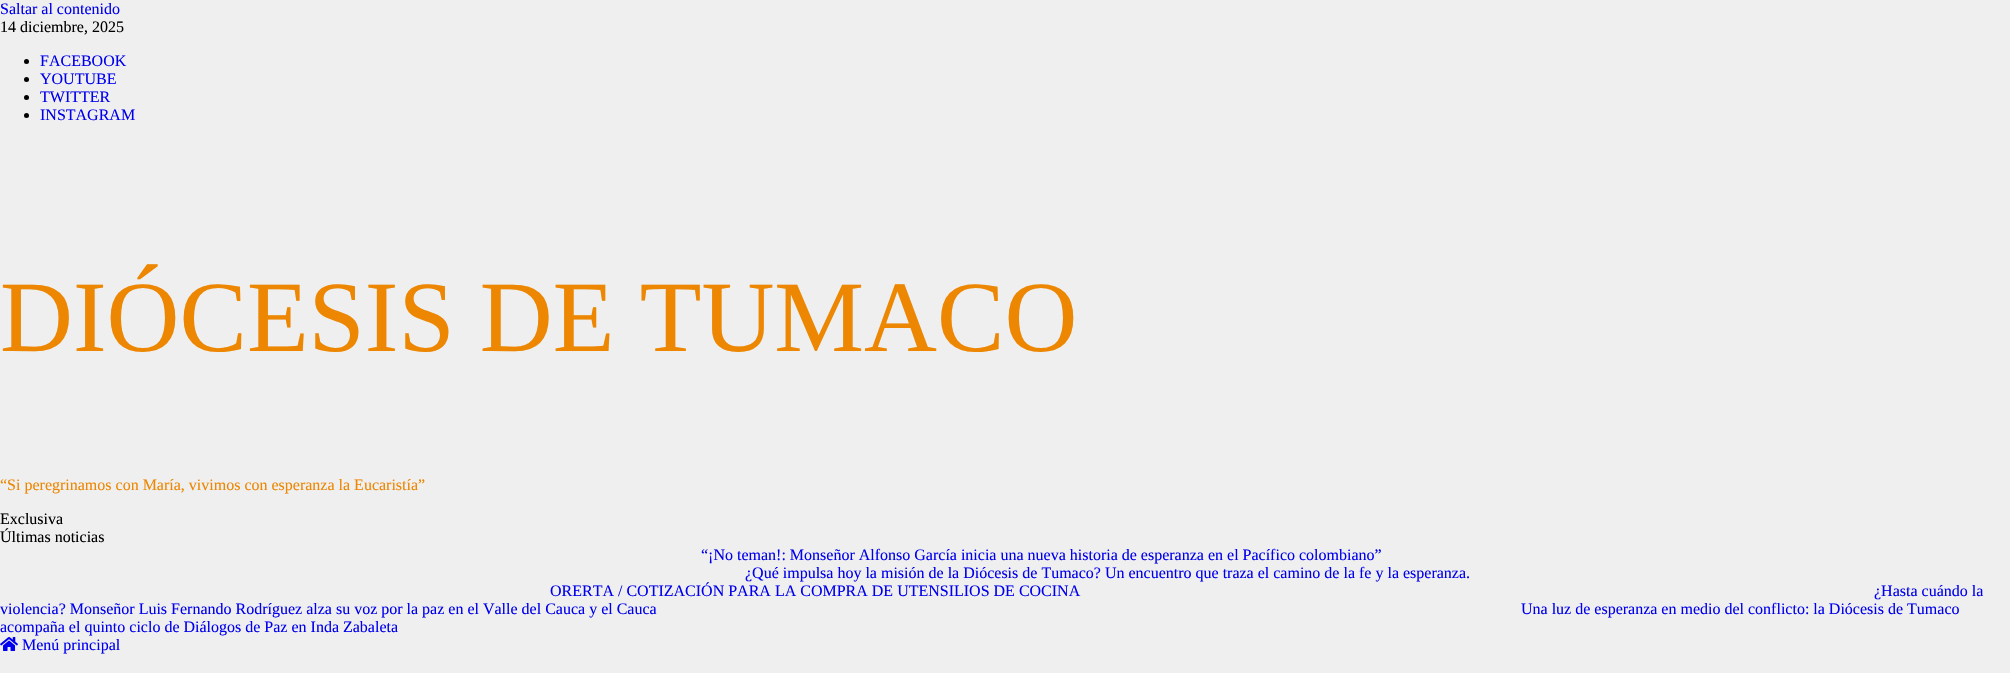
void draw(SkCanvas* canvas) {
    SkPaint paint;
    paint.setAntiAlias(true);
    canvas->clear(0xFFEFEFEF);
    SkFont font1(fontMgr->matchFamilyStyle("Liberation Serif", SkFontStyle::Normal()), 16);
    font1.setSubpixel(true);
    paint.setColor(0xFF0000EE);
    canvas->drawString("Saltar al contenido", 0, 14, font1, paint);
    paint.setColor(0xFF000000);
    canvas->drawString("14 diciembre, 2025", 0, 32, font1, paint);
    canvas->drawCircle(26.5f, 61.5f, 2.5f, paint);
    paint.setColor(0xFF0000EE);
    canvas->drawString("FACEBOOK", 40, 66, font1, paint);
    paint.setColor(0xFF000000);
    canvas->drawCircle(26.5f, 79.5f, 2.5f, paint);
    paint.setColor(0xFF0000EE);
    canvas->drawString("YOUTUBE", 40, 84, font1, paint);
    paint.setColor(0xFF000000);
    canvas->drawCircle(26.5f, 97.5f, 2.5f, paint);
    paint.setColor(0xFF0000EE);
    canvas->drawString("TWITTER", 40, 102, font1, paint);
    paint.setColor(0xFF000000);
    canvas->drawCircle(26.5f, 115.5f, 2.5f, paint);
    paint.setColor(0xFF0000EE);
    canvas->drawString("INSTAGRAM", 40, 120, font1, paint);
    SkFont font2(fontMgr->matchFamilyStyle("Liberation Serif", SkFontStyle::Normal()), 101);
    font2.setSubpixel(true);
    paint.setColor(0xFFED8600);
    canvas->drawString("DIÓCESIS DE TUMACO", 0, 351, font2, paint);
    canvas->drawString("“Si peregrinamos con María, vivimos con esperanza la Eucaristía”", 0, 490, font1, paint);
    paint.setColor(0xFF000000);
    canvas->drawString("Exclusiva", 0, 524, font1, paint);
    canvas->drawString("Últimas noticias", 0, 542, font1, paint);
    paint.setColor(0xFF0000EE);
    canvas->drawString("“¡No teman!: Monseñor Alfonso García inicia una nueva historia de esperanza en el Pacífico colombiano”", 701, 560, font1, paint);
    canvas->drawString("¿Qué impulsa hoy la misión de la Diócesis de Tumaco? Un encuentro que traza el camino de la fe y la esperanza.", 745, 578, font1, paint);
    canvas->drawString("ORERTA / COTIZACIÓN PARA LA COMPRA DE UTENSILIOS DE COCINA", 550, 596, font1, paint);
    canvas->drawString("¿Hasta cuándo la", 1874, 596, font1, paint);
    canvas->drawString("violencia? Monseñor Luis Fernando Rodríguez alza su voz por la paz en el Valle del Cauca y el Cauca", 0, 614, font1, paint);
    canvas->drawString("Una luz de esperanza en medio del conflicto: la Diócesis de Tumaco", 1521, 614, font1, paint);
    canvas->drawString("acompaña el quinto ciclo de Diálogos de Paz en Inda Zabaleta", 0, 632, font1, paint);
    canvas->drawImageRect(SkImages::DeferredFromEncodedData(SkData::MakeFromFileName("img1.png")), SkRect::MakeXYWH(0, 637, 18, 14), SkSamplingOptions());
    canvas->drawString("Menú principal", 22, 650, font1, paint);
}
